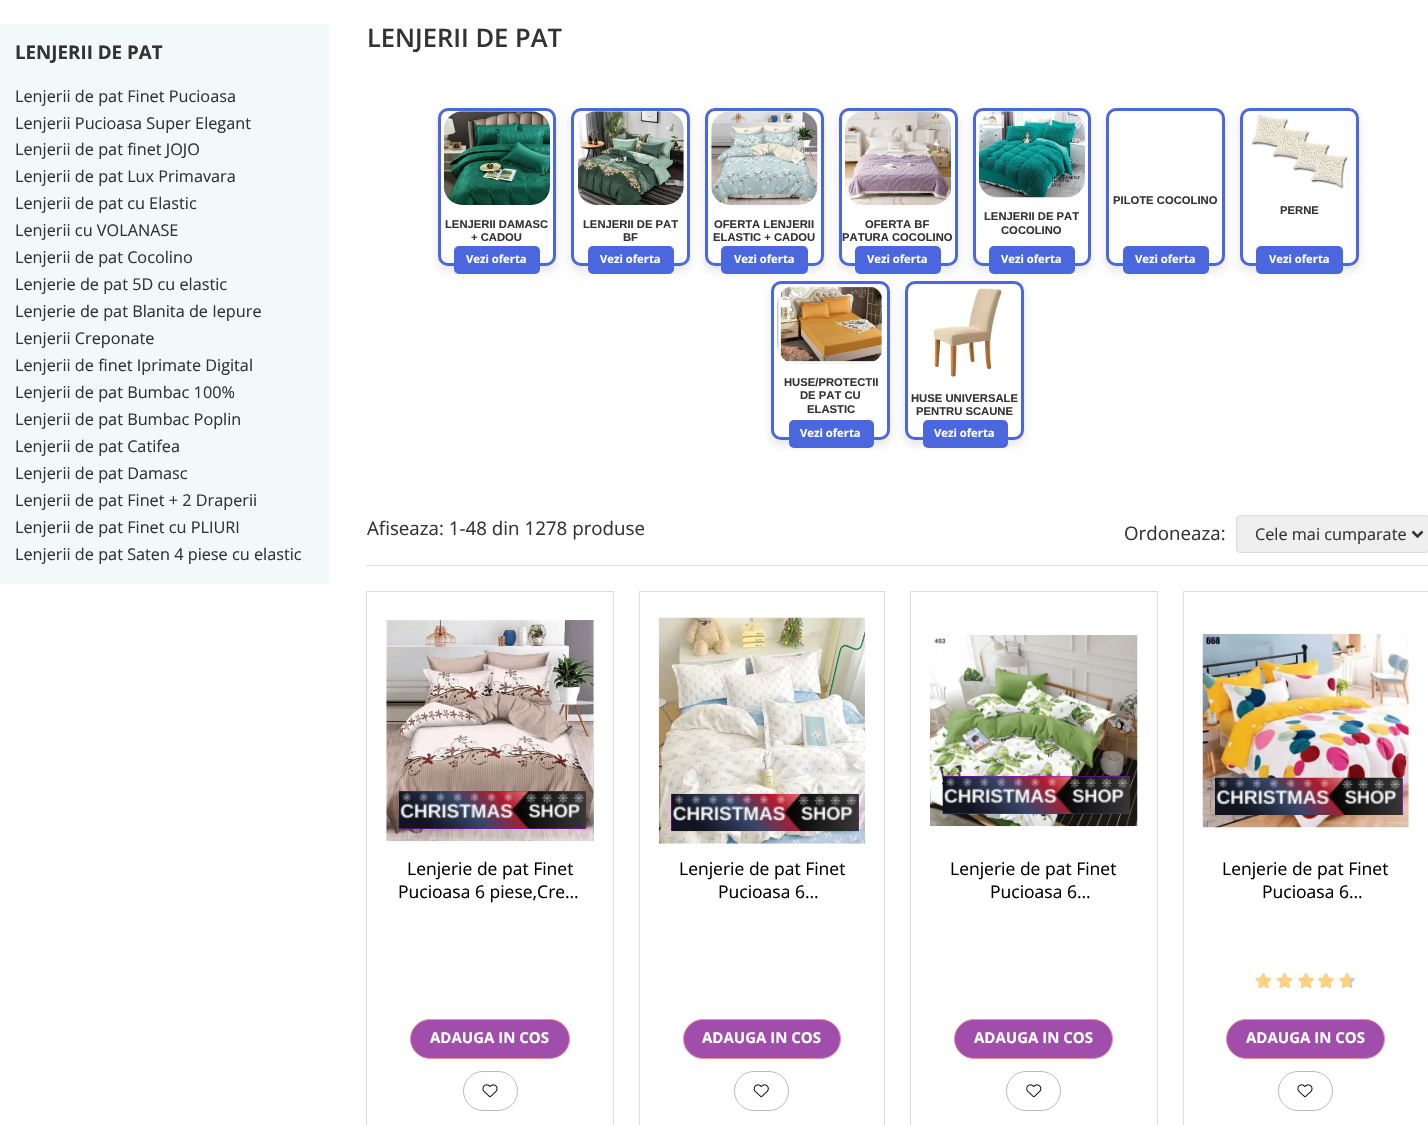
void draw(SkCanvas* canvas) {
    SkPaint paint;
    paint.setAntiAlias(true);
    canvas->clear(0xFFFFFFFF);
    paint.setColor(0xFFF1FAF8);
    canvas->drawRect(SkRect::MakeXYWH(0, 24, 329, 560), paint);
    SkFont font1(fontMgr->matchFamilyStyle("Open Sans", SkFontStyle::Bold()), 18.75f);
    font1.setSubpixel(true);
    paint.setColor(0xFF333333);
    canvas->drawString("LENJERII DE PAT", 15, 59, font1, paint);
    SkFont font2(fontMgr->matchFamilyStyle("Open Sans", SkFontStyle::Normal()), 16.25f);
    font2.setSubpixel(true);
    canvas->drawString("Lenjerii de pat Finet Pucioasa", 15, 102, font2, paint);
    canvas->drawString("Lenjerii Pucioasa Super Elegant", 15, 129, font2, paint);
    canvas->drawString("Lenjerii de pat finet JOJO", 15, 155, font2, paint);
    canvas->drawString("Lenjerii de pat Lux Primavara", 15, 182, font2, paint);
    canvas->drawString("Lenjerii de pat cu Elastic", 15, 209, font2, paint);
    canvas->drawString("Lenjerii cu VOLANASE", 15, 236, font2, paint);
    canvas->drawString("Lenjerii de pat Cocolino", 15, 263, font2, paint);
    canvas->drawString("Lenjerie de pat 5D cu elastic", 15, 290, font2, paint);
    canvas->drawString("Lenjerie de pat Blanita de Iepure", 15, 317, font2, paint);
    canvas->drawString("Lenjerii Creponate", 15, 344, font2, paint);
    canvas->drawString("Lenjerii de finet Iprimate Digital", 15, 371, font2, paint);
    canvas->drawString("Lenjerii de pat Bumbac 100%", 15, 398, font2, paint);
    canvas->drawString("Lenjerii de pat Bumbac Poplin", 15, 425, font2, paint);
    canvas->drawString("Lenjerii de pat Catifea", 15, 452, font2, paint);
    canvas->drawString("Lenjerii de pat Damasc", 15, 479, font2, paint);
    canvas->drawString("Lenjerii de pat Finet + 2 Draperii", 15, 506, font2, paint);
    canvas->drawString("Lenjerii de pat Finet cu PLIURI", 15, 533, font2, paint);
    canvas->drawString("Lenjerii de pat Saten 4 piese cu elastic", 15, 560, font2, paint);
    SkFont font3(fontMgr->matchFamilyStyle("Open Sans", SkFontStyle(600, SkFontStyle::kNormal_Width, SkFontStyle::kUpright_Slant)), 25.5f);
    font3.setSubpixel(true);
    canvas->drawString("LENJERII DE PAT", 367, 47, font3, paint);
    paint.setColor(0x1A000000);
    paint.setMaskFilter(SkMaskFilter::MakeBlur(kNormal_SkBlurStyle, 5));
    canvas->drawRoundRect(SkRect::MakeXYWH(438, 113, 118, 158), 10, 10, paint);
    paint.setMaskFilter(nullptr);
    paint.setColor(0xFFFFFFFF);
    canvas->drawRoundRect(SkRect::MakeXYWH(439.5f, 109.5f, 115, 155), 8.5f, 8.5f, paint);
    paint.setStyle(SkPaint::kStroke_Style);
    paint.setStrokeWidth(3);
    paint.setColor(0xFF4A67DE);
    canvas->drawRoundRect(SkRect::MakeXYWH(439.5f, 109.5f, 115, 155), 8.5f, 8.5f, paint);
    canvas->drawImageRect(SkImages::DeferredFromEncodedData(SkData::MakeFromFileName("img1.png")), SkRect::MakeXYWH(443, 111, 107, 94), SkSamplingOptions());
    SkFont font4(fontMgr->matchFamilyStyle("Liberation Sans", SkFontStyle::Bold()), 11.25f);
    font4.setSubpixel(true);
    paint.setStyle(SkPaint::kFill_Style);
    paint.setColor(0xFF333333);
    canvas->drawString("LENJERII DAMASC", 445, 228, font4, paint);
    canvas->drawString("+ CADOU", 471, 241, font4, paint);
    paint.setColor(0xFF4A67DE);
    canvas->drawRoundRect(SkRect::MakeXYWH(454, 246, 86, 28), 5, 5, paint);
    SkFont font5(fontMgr->matchFamilyStyle("Open Sans", SkFontStyle::Bold()), 11.25f);
    font5.setSubpixel(true);
    paint.setColor(0xFFFFFFFF);
    canvas->drawString("Vezi oferta", 466, 263, font5, paint);
    paint.setColor(0x1A000000);
    paint.setMaskFilter(SkMaskFilter::MakeBlur(kNormal_SkBlurStyle, 5));
    canvas->drawRoundRect(SkRect::MakeXYWH(571, 113, 119, 158), 10, 10, paint);
    paint.setMaskFilter(nullptr);
    paint.setColor(0xFFFFFFFF);
    canvas->drawRoundRect(SkRect::MakeXYWH(572.5f, 109.5f, 116, 155), 8.5f, 8.5f, paint);
    paint.setStyle(SkPaint::kStroke_Style);
    paint.setColor(0xFF4A67DE);
    canvas->drawRoundRect(SkRect::MakeXYWH(572.5f, 109.5f, 116, 155), 8.5f, 8.5f, paint);
    canvas->drawImageRect(SkImages::DeferredFromEncodedData(SkData::MakeFromFileName("img2.png")), SkRect::MakeXYWH(578, 111, 106, 94), SkSamplingOptions());
    paint.setStyle(SkPaint::kFill_Style);
    paint.setColor(0xFF333333);
    canvas->drawString("LENJERII DE PAT", 583, 228, font4, paint);
    canvas->drawString("BF", 623, 241, font4, paint);
    paint.setColor(0xFF4A67DE);
    canvas->drawRoundRect(SkRect::MakeXYWH(588, 246, 86, 28), 5, 5, paint);
    paint.setColor(0xFFFFFFFF);
    canvas->drawString("Vezi oferta", 600, 263, font5, paint);
    paint.setColor(0x1A000000);
    paint.setMaskFilter(SkMaskFilter::MakeBlur(kNormal_SkBlurStyle, 5));
    canvas->drawRoundRect(SkRect::MakeXYWH(705, 113, 119, 158), 10, 10, paint);
    paint.setMaskFilter(nullptr);
    paint.setColor(0xFFFFFFFF);
    canvas->drawRoundRect(SkRect::MakeXYWH(706.5f, 109.5f, 116, 155), 8.5f, 8.5f, paint);
    paint.setStyle(SkPaint::kStroke_Style);
    paint.setColor(0xFF4A67DE);
    canvas->drawRoundRect(SkRect::MakeXYWH(706.5f, 109.5f, 116, 155), 8.5f, 8.5f, paint);
    canvas->drawImageRect(SkImages::DeferredFromEncodedData(SkData::MakeFromFileName("img3.png")), SkRect::MakeXYWH(711, 111, 107, 94), SkSamplingOptions());
    paint.setStyle(SkPaint::kFill_Style);
    paint.setColor(0xFF333333);
    canvas->drawString("OFERTA LENJERII", 714, 228, font4, paint);
    canvas->drawString("ELASTIC + CADOU", 713, 241, font4, paint);
    paint.setColor(0xFF4A67DE);
    canvas->drawRoundRect(SkRect::MakeXYWH(721, 246, 87, 28), 5, 5, paint);
    paint.setColor(0xFFFFFFFF);
    canvas->drawString("Vezi oferta", 734, 263, font5, paint);
    paint.setColor(0x1A000000);
    paint.setMaskFilter(SkMaskFilter::MakeBlur(kNormal_SkBlurStyle, 5));
    canvas->drawRoundRect(SkRect::MakeXYWH(839, 113, 119, 158), 10, 10, paint);
    paint.setMaskFilter(nullptr);
    paint.setColor(0xFFFFFFFF);
    canvas->drawRoundRect(SkRect::MakeXYWH(840.5f, 109.5f, 116, 155), 8.5f, 8.5f, paint);
    paint.setStyle(SkPaint::kStroke_Style);
    paint.setColor(0xFF4A67DE);
    canvas->drawRoundRect(SkRect::MakeXYWH(840.5f, 109.5f, 116, 155), 8.5f, 8.5f, paint);
    canvas->drawImageRect(SkImages::DeferredFromEncodedData(SkData::MakeFromFileName("img4.png")), SkRect::MakeXYWH(845, 111, 107, 94), SkSamplingOptions());
    paint.setStyle(SkPaint::kFill_Style);
    paint.setColor(0xFF333333);
    canvas->drawString("OFERTA BF", 865, 228, font4, paint);
    canvas->drawString("PATURA COCOLINO", 842, 241, font4, paint);
    paint.setColor(0xFF4A67DE);
    canvas->drawRoundRect(SkRect::MakeXYWH(855, 246, 86, 28), 5, 5, paint);
    paint.setColor(0xFFFFFFFF);
    canvas->drawString("Vezi oferta", 867, 263, font5, paint);
    paint.setColor(0x1A000000);
    paint.setMaskFilter(SkMaskFilter::MakeBlur(kNormal_SkBlurStyle, 5));
    canvas->drawRoundRect(SkRect::MakeXYWH(973, 113, 118, 158), 10, 10, paint);
    paint.setMaskFilter(nullptr);
    paint.setColor(0xFFFFFFFF);
    canvas->drawRoundRect(SkRect::MakeXYWH(974.5f, 109.5f, 115, 155), 8.5f, 8.5f, paint);
    paint.setStyle(SkPaint::kStroke_Style);
    paint.setColor(0xFF4A67DE);
    canvas->drawRoundRect(SkRect::MakeXYWH(974.5f, 109.5f, 115, 155), 8.5f, 8.5f, paint);
    canvas->drawImageRect(SkImages::DeferredFromEncodedData(SkData::MakeFromFileName("img5.png")), SkRect::MakeXYWH(978, 111, 107, 87), SkSamplingOptions());
    paint.setStyle(SkPaint::kFill_Style);
    paint.setColor(0xFF333333);
    canvas->drawString("LENJERII DE PAT", 984, 220, font4, paint);
    canvas->drawString("COCOLINO", 1001, 234, font4, paint);
    paint.setColor(0xFF4A67DE);
    canvas->drawRoundRect(SkRect::MakeXYWH(989, 246, 86, 28), 5, 5, paint);
    paint.setColor(0xFFFFFFFF);
    canvas->drawString("Vezi oferta", 1001, 263, font5, paint);
    paint.setColor(0x1A000000);
    paint.setMaskFilter(SkMaskFilter::MakeBlur(kNormal_SkBlurStyle, 5));
    canvas->drawRoundRect(SkRect::MakeXYWH(1106, 113, 119, 158), 10, 10, paint);
    paint.setMaskFilter(nullptr);
    paint.setColor(0xFFFFFFFF);
    canvas->drawRoundRect(SkRect::MakeXYWH(1107.5f, 109.5f, 116, 155), 8.5f, 8.5f, paint);
    paint.setStyle(SkPaint::kStroke_Style);
    paint.setColor(0xFF4A67DE);
    canvas->drawRoundRect(SkRect::MakeXYWH(1107.5f, 109.5f, 116, 155), 8.5f, 8.5f, paint);
    paint.setStyle(SkPaint::kFill_Style);
    paint.setColor(0xFF333333);
    canvas->drawString("PILOTE COCOLINO", 1113, 204, font4, paint);
    paint.setColor(0xFF4A67DE);
    canvas->drawRoundRect(SkRect::MakeXYWH(1123, 246, 86, 28), 5, 5, paint);
    paint.setColor(0xFFFFFFFF);
    canvas->drawString("Vezi oferta", 1135, 263, font5, paint);
    paint.setColor(0x1A000000);
    paint.setMaskFilter(SkMaskFilter::MakeBlur(kNormal_SkBlurStyle, 5));
    canvas->drawRoundRect(SkRect::MakeXYWH(1240, 113, 119, 158), 10, 10, paint);
    paint.setMaskFilter(nullptr);
    paint.setColor(0xFFFFFFFF);
    canvas->drawRoundRect(SkRect::MakeXYWH(1241.5f, 109.5f, 116, 155), 8.5f, 8.5f, paint);
    paint.setStyle(SkPaint::kStroke_Style);
    paint.setColor(0xFF4A67DE);
    canvas->drawRoundRect(SkRect::MakeXYWH(1241.5f, 109.5f, 116, 155), 8.5f, 8.5f, paint);
    canvas->drawImageRect(SkImages::DeferredFromEncodedData(SkData::MakeFromFileName("img6.png")), SkRect::MakeXYWH(1251, 114, 97, 75), SkSamplingOptions());
    paint.setStyle(SkPaint::kFill_Style);
    paint.setColor(0xFF333333);
    canvas->drawString("PERNE", 1280, 214, font4, paint);
    paint.setColor(0xFF4A67DE);
    canvas->drawRoundRect(SkRect::MakeXYWH(1256, 246, 87, 28), 5, 5, paint);
    paint.setColor(0xFFFFFFFF);
    canvas->drawString("Vezi oferta", 1269, 263, font5, paint);
    paint.setColor(0x1A000000);
    paint.setMaskFilter(SkMaskFilter::MakeBlur(kNormal_SkBlurStyle, 5));
    canvas->drawRoundRect(SkRect::MakeXYWH(771, 286, 119, 159), 10, 10, paint);
    paint.setMaskFilter(nullptr);
    paint.setColor(0xFFFFFFFF);
    canvas->drawRoundRect(SkRect::MakeXYWH(772.5f, 282.5f, 116, 156), 8.5f, 8.5f, paint);
    paint.setStyle(SkPaint::kStroke_Style);
    paint.setColor(0xFF4A67DE);
    canvas->drawRoundRect(SkRect::MakeXYWH(772.5f, 282.5f, 116, 156), 8.5f, 8.5f, paint);
    canvas->drawImageRect(SkImages::DeferredFromEncodedData(SkData::MakeFromFileName("img7.png")), SkRect::MakeXYWH(777, 286, 105, 78), SkSamplingOptions());
    paint.setStyle(SkPaint::kFill_Style);
    paint.setColor(0xFF333333);
    canvas->drawString("HUSE/PROTECTII", 784, 386, font4, paint);
    canvas->drawString("DE PAT CU", 800, 399, font4, paint);
    canvas->drawString("ELASTIC", 807, 413, font4, paint);
    paint.setColor(0xFF4A67DE);
    canvas->drawRoundRect(SkRect::MakeXYWH(789, 420, 85, 28), 5, 5, paint);
    paint.setColor(0xFFFFFFFF);
    canvas->drawString("Vezi oferta", 800, 437, font5, paint);
    paint.setColor(0x1A000000);
    paint.setMaskFilter(SkMaskFilter::MakeBlur(kNormal_SkBlurStyle, 5));
    canvas->drawRoundRect(SkRect::MakeXYWH(905, 286, 119, 159), 10, 10, paint);
    paint.setMaskFilter(nullptr);
    paint.setColor(0xFFFFFFFF);
    canvas->drawRoundRect(SkRect::MakeXYWH(906.5f, 282.5f, 116, 156), 8.5f, 8.5f, paint);
    paint.setStyle(SkPaint::kStroke_Style);
    paint.setColor(0xFF4A67DE);
    canvas->drawRoundRect(SkRect::MakeXYWH(906.5f, 282.5f, 116, 156), 8.5f, 8.5f, paint);
    canvas->drawImageRect(SkImages::DeferredFromEncodedData(SkData::MakeFromFileName("img8.png")), SkRect::MakeXYWH(933, 288, 69, 90), SkSamplingOptions());
    paint.setStyle(SkPaint::kFill_Style);
    paint.setColor(0xFF333333);
    canvas->drawString("HUSE UNIVERSALE", 911, 402, font4, paint);
    canvas->drawString("PENTRU SCAUNE", 916, 415, font4, paint);
    paint.setColor(0xFF4A67DE);
    canvas->drawRoundRect(SkRect::MakeXYWH(923, 420, 85, 28), 5, 5, paint);
    paint.setColor(0xFFFFFFFF);
    canvas->drawString("Vezi oferta", 934, 437, font5, paint);
    paint.setColor(0xFFDFDFDF);
    canvas->drawRect(SkRect::MakeXYWH(366, 565, 1062, 1), paint);
    SkFont font6(fontMgr->matchFamilyStyle("Open Sans", SkFontStyle::Normal()), 18.75f);
    font6.setSubpixel(true);
    paint.setColor(0xFF333333);
    canvas->drawString("Afiseaza: 1-48 din 1278 produse", 367, 535, font6, paint);
    canvas->drawString("Ordoneaza:", 1124, 540, font6, paint);
    paint.setColor(0xFFEFEFEF);
    canvas->drawRoundRect(SkRect::MakeXYWH(1236.5f, 515.5f, 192, 37), 3.5f, 3.5f, paint);
    paint.setStyle(SkPaint::kStroke_Style);
    paint.setStrokeWidth(1);
    paint.setColor(0xFFDBDBDB);
    canvas->drawRoundRect(SkRect::MakeXYWH(1236.5f, 515.5f, 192, 37), 3.5f, 3.5f, paint);
    paint.setStrokeWidth(2.5f);
    paint.setColor(0xFF333333);
    canvas->drawPath(SkPathBuilder().moveTo(1412.5f, 531.5f).lineTo(1417.5f, 536.5f).lineTo(1422.5f, 531.5f).detach(), paint);
    paint.setStyle(SkPaint::kFill_Style);
    canvas->drawString("Cele mai cumparate", 1255, 540, font2, paint);
    paint.setStyle(SkPaint::kStroke_Style);
    paint.setStrokeWidth(1);
    paint.setColor(0xFFDDDDDD);
    canvas->drawRect(SkRect::MakeXYWH(366.5f, 591.5f, 247, 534), paint);
    canvas->drawImageRect(SkImages::DeferredFromEncodedData(SkData::MakeFromFileName("img9.png")), SkRect::MakeXYWH(386, 620, 208, 222), SkSamplingOptions());
    paint.setStyle(SkPaint::kFill_Style);
    paint.setColor(0xFFB200FF);
    canvas->drawRect(SkRect::MakeXYWH(399, 791, 187, 38), paint);
    canvas->drawImageRect(SkImages::DeferredFromEncodedData(SkData::MakeFromFileName("img10.png")), SkRect::MakeXYWH(398, 791, 189, 38), SkSamplingOptions());
    SkFont font7(fontMgr->matchFamilyStyle("Open Sans", SkFontStyle::Normal()), 17.5f);
    font7.setSubpixel(true);
    paint.setColor(0xFF000000);
    canvas->drawString("Lenjerie de pat Finet", 407, 875, font7, paint);
    canvas->drawString("Pucioasa 6 piese,Cre…", 398, 898, font7, paint);
    paint.setColor(0xFFA14DAB);
    canvas->drawRoundRect(SkRect::MakeXYWH(410.5f, 1019.5f, 159, 39), 19.5f, 19.5f, paint);
    paint.setStyle(SkPaint::kStroke_Style);
    paint.setColor(0xFFEF8E9F);
    canvas->drawRoundRect(SkRect::MakeXYWH(410.5f, 1019.5f, 159, 39), 19.5f, 19.5f, paint);
    SkFont font8(fontMgr->matchFamilyStyle("Open Sans", SkFontStyle::Bold()), 15);
    font8.setSubpixel(true);
    paint.setStyle(SkPaint::kFill_Style);
    paint.setColor(0xFFFFFFFF);
    canvas->drawString("ADAUGA IN COS", 430, 1043, font8, paint);
    paint.setStyle(SkPaint::kStroke_Style);
    paint.setColor(0xFFBBBBBB);
    canvas->drawRoundRect(SkRect::MakeXYWH(463.5f, 1071.5f, 54, 39), 19.5f, 19.5f, paint);
    canvas->drawImageRect(SkImages::DeferredFromEncodedData(SkData::MakeFromFileName("img11.png")), SkRect::MakeXYWH(482, 1084, 16, 14), SkSamplingOptions());
    paint.setColor(0xFFDDDDDD);
    canvas->drawRect(SkRect::MakeXYWH(639.5f, 591.5f, 245, 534), paint);
    canvas->drawImageRect(SkImages::DeferredFromEncodedData(SkData::MakeFromFileName("img12.png")), SkRect::MakeXYWH(658, 617, 207, 227), SkSamplingOptions());
    paint.setStyle(SkPaint::kFill_Style);
    paint.setColor(0xFFB200FF);
    canvas->drawRect(SkRect::MakeXYWH(671, 794, 188, 37), paint);
    canvas->drawImageRect(SkImages::DeferredFromEncodedData(SkData::MakeFromFileName("img13.png")), SkRect::MakeXYWH(671, 793, 188, 39), SkSamplingOptions());
    paint.setColor(0xFF000000);
    canvas->drawString("Lenjerie de pat Finet", 679, 875, font7, paint);
    canvas->drawString("Pucioasa 6…", 718, 898, font7, paint);
    paint.setColor(0xFFA14DAB);
    canvas->drawRoundRect(SkRect::MakeXYWH(683.5f, 1019.5f, 157, 39), 19.5f, 19.5f, paint);
    paint.setStyle(SkPaint::kStroke_Style);
    paint.setColor(0xFFEF8E9F);
    canvas->drawRoundRect(SkRect::MakeXYWH(683.5f, 1019.5f, 157, 39), 19.5f, 19.5f, paint);
    paint.setStyle(SkPaint::kFill_Style);
    paint.setColor(0xFFFFFFFF);
    canvas->drawString("ADAUGA IN COS", 702, 1043, font8, paint);
    paint.setStyle(SkPaint::kStroke_Style);
    paint.setColor(0xFFBBBBBB);
    canvas->drawRoundRect(SkRect::MakeXYWH(734.5f, 1071.5f, 54, 39), 19.5f, 19.5f, paint);
    canvas->drawImageRect(SkImages::DeferredFromEncodedData(SkData::MakeFromFileName("img14.png")), SkRect::MakeXYWH(753, 1084, 16, 14), SkSamplingOptions());
    paint.setColor(0xFFDDDDDD);
    canvas->drawRect(SkRect::MakeXYWH(910.5f, 591.5f, 247, 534), paint);
    canvas->drawImageRect(SkImages::DeferredFromEncodedData(SkData::MakeFromFileName("img15.png")), SkRect::MakeXYWH(930, 635, 208, 192), SkSamplingOptions());
    paint.setStyle(SkPaint::kFill_Style);
    paint.setColor(0xFFB200FF);
    canvas->drawRect(SkRect::MakeXYWH(943, 776, 187, 38), paint);
    canvas->drawImageRect(SkImages::DeferredFromEncodedData(SkData::MakeFromFileName("img16.png")), SkRect::MakeXYWH(942, 776, 188, 38), SkSamplingOptions());
    paint.setColor(0xFF000000);
    canvas->drawString("Lenjerie de pat Finet", 950, 875, font7, paint);
    canvas->drawString("Pucioasa 6…", 990, 898, font7, paint);
    paint.setColor(0xFFA14DAB);
    canvas->drawRoundRect(SkRect::MakeXYWH(954.5f, 1019.5f, 158, 39), 19.5f, 19.5f, paint);
    paint.setStyle(SkPaint::kStroke_Style);
    paint.setColor(0xFFEF8E9F);
    canvas->drawRoundRect(SkRect::MakeXYWH(954.5f, 1019.5f, 158, 39), 19.5f, 19.5f, paint);
    paint.setStyle(SkPaint::kFill_Style);
    paint.setColor(0xFFFFFFFF);
    canvas->drawString("ADAUGA IN COS", 974, 1043, font8, paint);
    paint.setStyle(SkPaint::kStroke_Style);
    paint.setColor(0xFFBBBBBB);
    canvas->drawRoundRect(SkRect::MakeXYWH(1006.5f, 1071.5f, 54, 39), 19.5f, 19.5f, paint);
    canvas->drawImageRect(SkImages::DeferredFromEncodedData(SkData::MakeFromFileName("img17.png")), SkRect::MakeXYWH(1026, 1084, 16, 14), SkSamplingOptions());
    paint.setColor(0xFFDDDDDD);
    canvas->drawRect(SkRect::MakeXYWH(1183.5f, 591.5f, 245, 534), paint);
    canvas->drawImageRect(SkImages::DeferredFromEncodedData(SkData::MakeFromFileName("img18.png")), SkRect::MakeXYWH(1202, 633, 207, 195), SkSamplingOptions());
    paint.setStyle(SkPaint::kFill_Style);
    paint.setColor(0xFFB200FF);
    canvas->drawRect(SkRect::MakeXYWH(1402, 778, 1, 37), paint);
    canvas->drawImageRect(SkImages::DeferredFromEncodedData(SkData::MakeFromFileName("img19.png")), SkRect::MakeXYWH(1215, 777, 188, 38), SkSamplingOptions());
    paint.setColor(0xFF000000);
    canvas->drawString("Lenjerie de pat Finet", 1222, 875, font7, paint);
    canvas->drawString("Pucioasa 6…", 1262, 898, font7, paint);
    canvas->drawImageRect(SkImages::DeferredFromEncodedData(SkData::MakeFromFileName("img20.png")), SkRect::MakeXYWH(1255, 973, 16, 15), SkSamplingOptions());
    canvas->drawImageRect(SkImages::DeferredFromEncodedData(SkData::MakeFromFileName("img21.png")), SkRect::MakeXYWH(1255, 973, 17, 16), SkSamplingOptions());
    canvas->drawImageRect(SkImages::DeferredFromEncodedData(SkData::MakeFromFileName("img25.png")), SkRect::MakeXYWH(1277, 973, 16, 15), SkSamplingOptions());
    canvas->drawImageRect(SkImages::DeferredFromEncodedData(SkData::MakeFromFileName("img22.png")), SkRect::MakeXYWH(1277, 973, 16, 16), SkSamplingOptions());
    canvas->drawImageRect(SkImages::DeferredFromEncodedData(SkData::MakeFromFileName("img26.png")), SkRect::MakeXYWH(1298, 973, 16, 15), SkSamplingOptions());
    canvas->drawImageRect(SkImages::DeferredFromEncodedData(SkData::MakeFromFileName("img23.png")), SkRect::MakeXYWH(1298, 973, 16, 16), SkSamplingOptions());
    canvas->drawImageRect(SkImages::DeferredFromEncodedData(SkData::MakeFromFileName("img26.png")), SkRect::MakeXYWH(1318, 973, 16, 15), SkSamplingOptions());
    canvas->drawImageRect(SkImages::DeferredFromEncodedData(SkData::MakeFromFileName("img23.png")), SkRect::MakeXYWH(1318, 973, 16, 16), SkSamplingOptions());
    canvas->drawImageRect(SkImages::DeferredFromEncodedData(SkData::MakeFromFileName("img27.png")), SkRect::MakeXYWH(1339, 973, 16, 15), SkSamplingOptions());
    canvas->drawImageRect(SkImages::DeferredFromEncodedData(SkData::MakeFromFileName("img24.png")), SkRect::MakeXYWH(1339, 973, 11, 15), SkSamplingOptions());
    paint.setColor(0xFFA14DAB);
    canvas->drawRoundRect(SkRect::MakeXYWH(1226.5f, 1019.5f, 158, 39), 19.5f, 19.5f, paint);
    paint.setStyle(SkPaint::kStroke_Style);
    paint.setColor(0xFFEF8E9F);
    canvas->drawRoundRect(SkRect::MakeXYWH(1226.5f, 1019.5f, 158, 39), 19.5f, 19.5f, paint);
    paint.setStyle(SkPaint::kFill_Style);
    paint.setColor(0xFFFFFFFF);
    canvas->drawString("ADAUGA IN COS", 1246, 1043, font8, paint);
    paint.setStyle(SkPaint::kStroke_Style);
    paint.setColor(0xFFBBBBBB);
    canvas->drawRoundRect(SkRect::MakeXYWH(1278.5f, 1071.5f, 54, 39), 19.5f, 19.5f, paint);
    canvas->drawImageRect(SkImages::DeferredFromEncodedData(SkData::MakeFromFileName("img11.png")), SkRect::MakeXYWH(1297, 1084, 16, 14), SkSamplingOptions());
}
